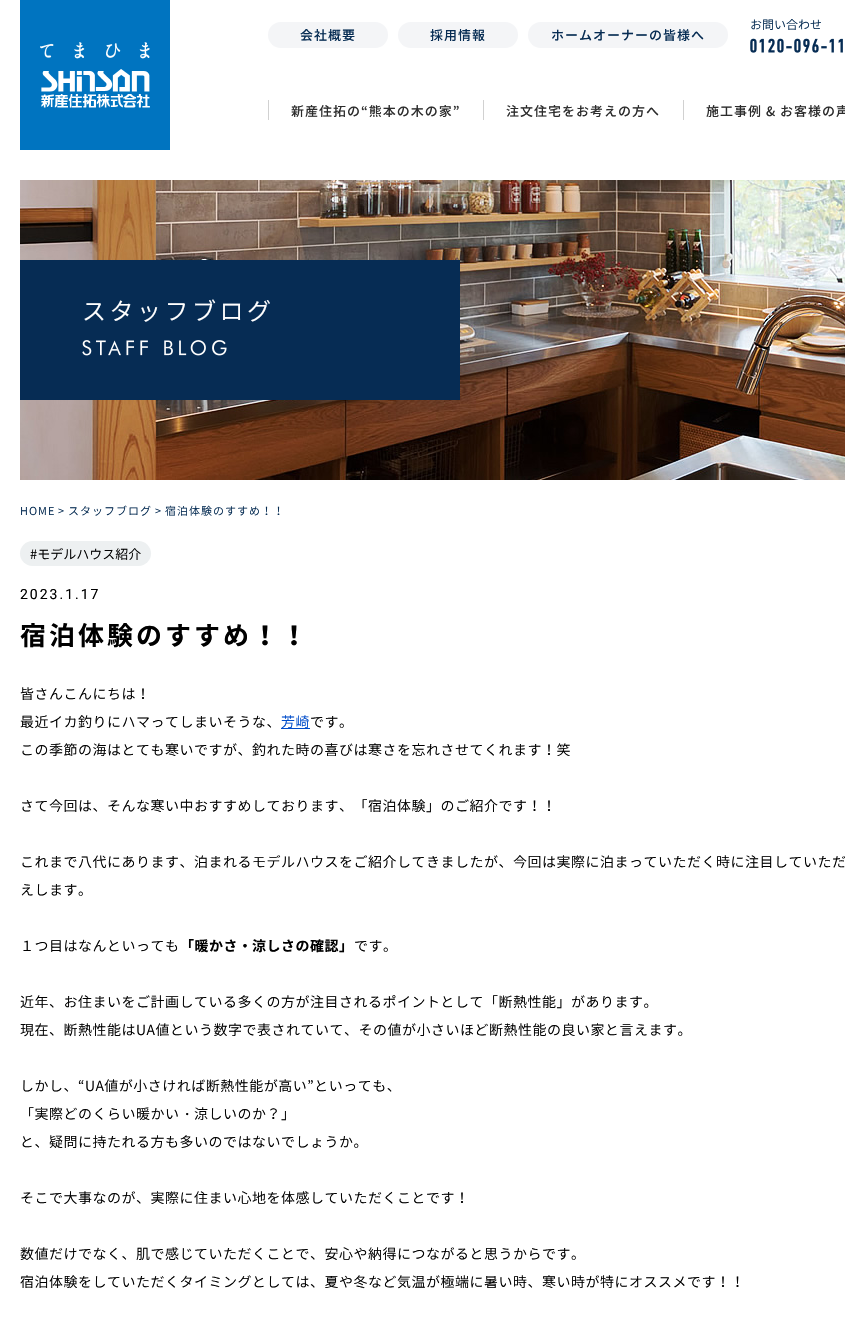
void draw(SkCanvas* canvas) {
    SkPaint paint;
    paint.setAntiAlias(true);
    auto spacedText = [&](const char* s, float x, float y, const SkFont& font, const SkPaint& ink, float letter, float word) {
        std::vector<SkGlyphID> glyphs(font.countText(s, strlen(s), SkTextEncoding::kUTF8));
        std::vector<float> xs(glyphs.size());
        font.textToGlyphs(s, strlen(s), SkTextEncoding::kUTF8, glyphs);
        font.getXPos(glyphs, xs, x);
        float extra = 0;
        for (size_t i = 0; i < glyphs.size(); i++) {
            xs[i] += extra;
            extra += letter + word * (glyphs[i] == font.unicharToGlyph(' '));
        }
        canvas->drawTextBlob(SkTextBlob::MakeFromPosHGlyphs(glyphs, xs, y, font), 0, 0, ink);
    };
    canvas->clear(0xFFFFFFFF);
    paint.setColor(0xFF0074C0);
    canvas->drawRect(SkRect::MakeXYWH(20, 0, 150, 150), paint);
    canvas->drawImageRect(SkImages::DeferredFromEncodedData(SkData::MakeFromFileName("img1.png")), SkRect::MakeXYWH(40, 42, 110, 66), SkSamplingOptions());
    SkFont font1(fontMgr->matchFamilyStyle("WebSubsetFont", SkFontStyle(300, SkFontStyle::kNormal_Width, SkFontStyle::kUpright_Slant)), 12);
    font1.setSubpixel(true);
    paint.setColor(0xFF062C53);
    canvas->drawString("お問い合わせ", 750, 29, font1, paint);
    canvas->drawImageRect(SkImages::DeferredFromEncodedData(SkData::MakeFromFileName("img2.png")), SkRect::MakeXYWH(750, 38, 93, 15), SkSamplingOptions());
    paint.setColor(0xFFF4F5F7);
    canvas->drawRoundRect(SkRect::MakeXYWH(268, 22, 120, 26), 13, 13, paint);
    SkFont font2(fontMgr->matchFamilyStyle("WebSubsetFont", SkFontStyle(500, SkFontStyle::kNormal_Width, SkFontStyle::kUpright_Slant)), 13);
    font2.setSubpixel(true);
    paint.setColor(0xFF062C53);
    spacedText("会社概要", 300, 40, font2, paint, 1, 0);
    paint.setColor(0xFFF4F5F7);
    canvas->drawRoundRect(SkRect::MakeXYWH(398, 22, 120, 26), 13, 13, paint);
    paint.setColor(0xFF062C53);
    spacedText("採用情報", 430, 40, font2, paint, 1, 0);
    paint.setColor(0xFFF4F5F7);
    canvas->drawRoundRect(SkRect::MakeXYWH(528, 22, 200, 26), 13, 13, paint);
    paint.setColor(0xFF062C53);
    spacedText("ホームオーナーの皆様へ", 551, 40, font2, paint, 1, 0);
    paint.setColor(0xFFD1D1D1);
    canvas->drawRect(SkRect::MakeXYWH(483, 100, 1, 20), paint);
    canvas->drawRect(SkRect::MakeXYWH(268, 100, 1, 20), paint);
    paint.setColor(0xFF2C2C2C);
    spacedText("新産住拓の“熊本の木の家”", 291, 116, font2, paint, 1, 0);
    paint.setColor(0xFFD1D1D1);
    canvas->drawRect(SkRect::MakeXYWH(683, 100, 1, 20), paint);
    paint.setColor(0xFF2C2C2C);
    spacedText("注文住宅をお考えの方へ", 506, 116, font2, paint, 1, 0);
    spacedText("施工事例 & お客様の声", 706, 116, font2, paint, 1, 0);
    canvas->drawImageRect(SkImages::DeferredFromEncodedData(SkData::MakeFromFileName("img3.png")), SkRect::MakeXYWH(20, 180, 825, 300), SkSamplingOptions());
    paint.setColor(0xFF062C54);
    canvas->drawRect(SkRect::MakeXYWH(20, 260, 440, 140), paint);
    SkFont font3(fontMgr->matchFamilyStyle("WebSubsetFont", SkFontStyle(300, SkFontStyle::kNormal_Width, SkFontStyle::kUpright_Slant)), 24);
    font3.setSubpixel(true);
    paint.setColor(0xFFFFFFFF);
    spacedText("スタッフブログ", 82, 320, font3, paint, 3.5f, 0);
    canvas->drawImageRect(SkImages::DeferredFromEncodedData(SkData::MakeFromFileName("img4.png")), SkRect::MakeXYWH(82, 340, 145, 16), SkSamplingOptions());
    SkFont font4(fontMgr->matchFamilyStyle("WebSubsetFont", SkFontStyle(300, SkFontStyle::kNormal_Width, SkFontStyle::kUpright_Slant)), 11);
    font4.setSubpixel(true);
    paint.setColor(0xFF062C53);
    spacedText("HOME", 20, 515, font4, paint, 1, 0);
    spacedText(">", 58, 515, font4, paint, 1, 0);
    spacedText("スタッフブログ", 68, 515, font4, paint, 1, 0);
    spacedText(">", 155, 515, font4, paint, 1, 0);
    spacedText("宿泊体験のすすめ！！", 165, 515, font4, paint, 1, 0);
    paint.setColor(0xFFEDF0F1);
    canvas->drawRoundRect(SkRect::MakeXYWH(20, 541, 131, 25), 12.5f, 12.5f, paint);
    SkFont font5(fontMgr->matchFamilyStyle("WebSubsetFont", SkFontStyle(300, SkFontStyle::kNormal_Width, SkFontStyle::kUpright_Slant)), 13);
    font5.setSubpixel(true);
    paint.setColor(0xFF000000);
    canvas->drawString("#モデルハウス紹介", 30, 559, font5, paint);
    SkFont font6(fontMgr->matchFamilyStyle("Roboto", SkFontStyle::Normal()), 14);
    font6.setSubpixel(true);
    spacedText("2023.1.17", 20, 599, font6, paint, 2, 0);
    SkFont font7(fontMgr->matchFamilyStyle("WebSubsetFont", SkFontStyle::Bold()), 26);
    font7.setSubpixel(true);
    spacedText("宿泊体験のすすめ！！", 20, 645, font7, paint, 3, 0);
    SkFont font8(fontMgr->matchFamilyStyle("WebSubsetFont", SkFontStyle(300, SkFontStyle::kNormal_Width, SkFontStyle::kUpright_Slant)), 14);
    font8.setSubpixel(true);
    spacedText("皆さんこんにちは！", 20, 699, font8, paint, 0.5f, 0);
    spacedText("最近イカ釣りにハマってしまいそうな、", 20, 727, font8, paint, 0.5f, 0);
    paint.setColor(0xFF004CCA);
    canvas->drawRect(SkRect::MakeXYWH(281, 728, 29, 1), paint);
    spacedText("芳崎", 281, 727, font8, paint, 0.5f, 0);
    paint.setColor(0xFF000000);
    spacedText("です。", 310, 727, font8, paint, 0.5f, 0);
    spacedText("この季節の海はとても寒いですが、釣れた時の喜びは寒さを忘れさせてくれます！笑", 20, 755, font8, paint, 0.5f, 0);
    spacedText("さて今回は、そんな寒い中おすすめしております、「宿泊体験」のご紹介です！！", 20, 811, font8, paint, 0.5f, 0);
    spacedText("これまで八代にあります、泊まれるモデルハウスをご紹介してきましたが、今回は実際に泊まっていただく時に注目していただ", 20, 867, font8, paint, 0.5f, 0);
    spacedText("えします。", 20, 895, font8, paint, 0.5f, 0);
    spacedText("１つ目はなんといっても", 20, 951, font8, paint, 0.5f, 0);
    SkFont font9(fontMgr->matchFamilyStyle("WebSubsetFont", SkFontStyle::Bold()), 14);
    font9.setSubpixel(true);
    spacedText("「暖かさ", 180, 951, font9, paint, 0.5f, 0);
    SkFont font10(fontMgr->matchFamilyStyle("Noto Sans JP", SkFontStyle::Bold()), 14);
    font10.setSubpixel(true);
    spacedText("・", 238, 951, font10, paint, 0.5f, 0);
    spacedText("涼しさの確認」", 252, 951, font9, paint, 0.5f, 0);
    spacedText("です。", 354, 951, font8, paint, 0.5f, 0);
    spacedText("近年、お住まいをご計画している多くの方が注目されるポイントとして「断熱性能」があります。", 20, 1007, font8, paint, 0.5f, 0);
    spacedText("現在、断熱性能はUA値という数字で表されていて、その値が小さいほど断熱性能の良い家と言えます。", 20, 1035, font8, paint, 0.5f, 0);
    spacedText("しかし、“UA値が小さければ断熱性能が高い”といっても、", 20, 1091, font8, paint, 0.5f, 0);
    spacedText("「実際どのくらい暖かい", 20, 1119, font8, paint, 0.5f, 0);
    SkFont font11(fontMgr->matchFamilyStyle("WenQuanYi Zen Hei", SkFontStyle(500, SkFontStyle::kNormal_Width, SkFontStyle::kUpright_Slant)), 14);
    font11.setSubpixel(true);
    spacedText("・", 180, 1119, font11, paint, 0.5f, 0);
    spacedText("涼しいのか？」", 194, 1119, font8, paint, 0.5f, 0);
    spacedText("と、疑問に持たれる方も多いのではないでしょうか。", 20, 1147, font8, paint, 0.5f, 0);
    spacedText("そこで大事なのが、実際に住まい心地を体感していただくことです！", 20, 1203, font8, paint, 0.5f, 0);
    spacedText("数値だけでなく、肌で感じていただくことで、安心や納得につながると思うからです。", 20, 1259, font8, paint, 0.5f, 0);
    spacedText("宿泊体験をしていただくタイミングとしては、夏や冬など気温が極端に暑い時、寒い時が特にオススメです！！", 20, 1287, font8, paint, 0.5f, 0);
}
